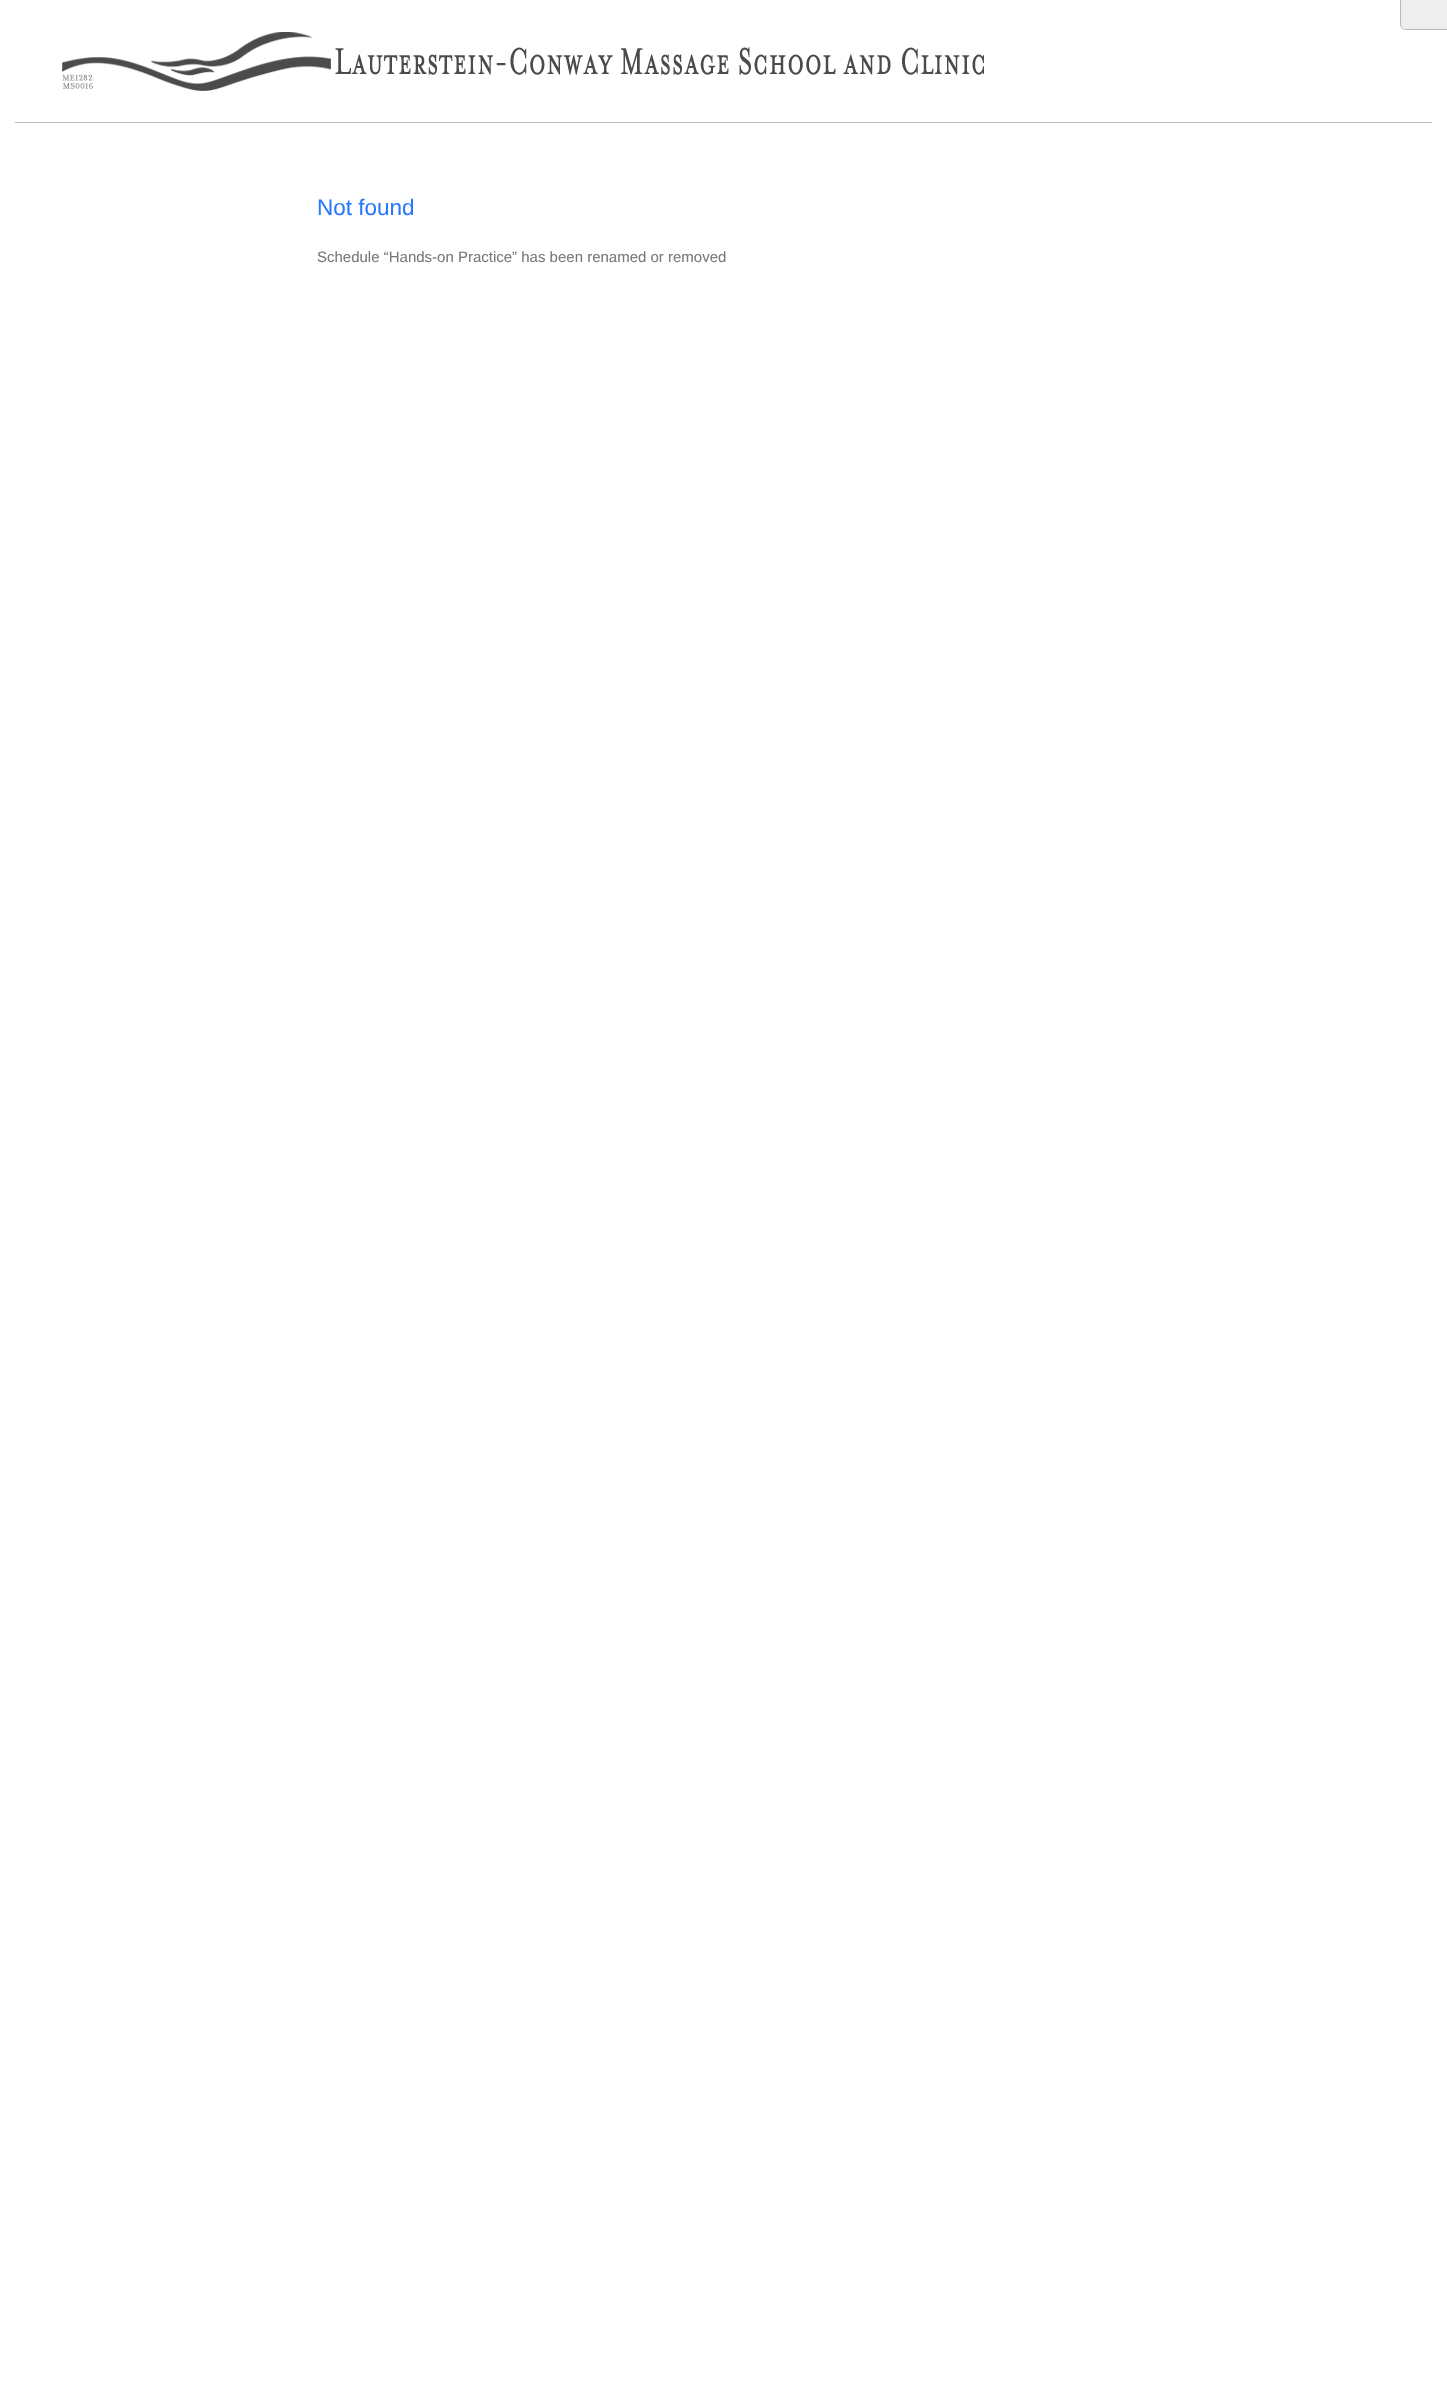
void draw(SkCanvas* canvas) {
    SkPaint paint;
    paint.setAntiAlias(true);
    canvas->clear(0xFFFFFFFF);
    paint.setColor(0xFFEEEEEE);
    canvas->drawPath(SkPathBuilder().moveTo(1401, 0).lineTo(1447, 0).lineTo(1447, 29).lineTo(1406, 29).cubicTo(1403, 29, 1401, 27, 1401, 24).close().detach(), paint);
    paint.setColor(0xFFB7B5B5);
    canvas->drawPath(SkPathBuilder(SkPathFillType::kEvenOdd).moveTo(1400, 0).lineTo(1447, 0).lineTo(1447, 30).lineTo(1406, 30).cubicTo(1403, 30, 1400, 27, 1400, 24).close().moveTo(1401, 0).lineTo(1447, 0).lineTo(1447, 29).lineTo(1406, 29).cubicTo(1403, 29, 1401, 27, 1401, 24).close().detach(), paint);
    canvas->drawImageRect(SkImages::DeferredFromEncodedData(SkData::MakeFromFileName("img1.png")), SkRect::MakeXYWH(62, 32, 922, 59), SkSamplingOptions());
    paint.setColor(0xFFBDBDBD);
    canvas->drawRect(SkRect::MakeXYWH(15, 122, 1417, 1), paint);
    SkFont font1(fontMgr->matchFamilyStyle("Liberation Sans", SkFontStyle::Normal()), 22.5f);
    font1.setSubpixel(true);
    paint.setColor(0xFF2979FF);
    canvas->drawString("Not found", 317, 215, font1, paint);
    SkFont font2(fontMgr->matchFamilyStyle("Liberation Sans", SkFontStyle::Normal()), 15);
    font2.setSubpixel(true);
    paint.setColor(0xFF79797A);
    canvas->drawString("Schedule “Hands-on Practice” has been renamed or removed", 317, 262, font2, paint);
}
